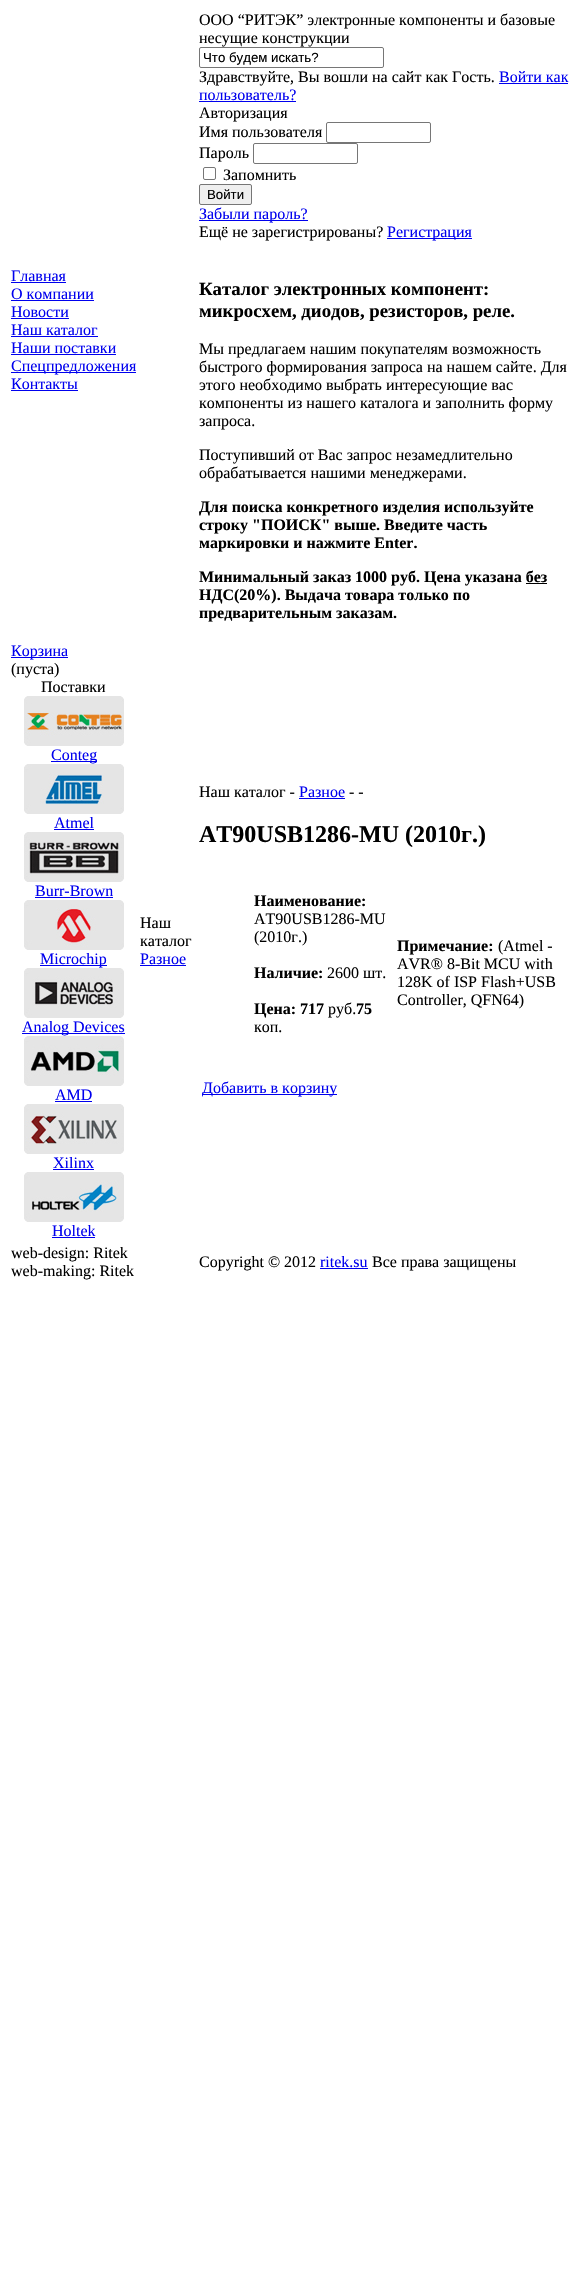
void draw(SkCanvas* canvas) {
    SkPaint paint;
    paint.setAntiAlias(true);
    canvas->clear(0xFFFFFFFF);
    SkFont font1(fontMgr->matchFamilyStyle("Liberation Serif", SkFontStyle::Normal()), 16);
    font1.setSubpixel(true);
    paint.setColor(0xFF0000EE);
    canvas->drawString("Главная", 11, 281, font1, paint);
    canvas->drawRect(SkRect::MakeXYWH(11, 282, 55, 1), paint);
    canvas->drawString("О компании", 11, 299, font1, paint);
    canvas->drawRect(SkRect::MakeXYWH(11, 300, 83, 1), paint);
    canvas->drawString("Новости", 11, 317, font1, paint);
    canvas->drawRect(SkRect::MakeXYWH(11, 318, 58, 1), paint);
    canvas->drawString("Наш каталог", 11, 335, font1, paint);
    canvas->drawRect(SkRect::MakeXYWH(11, 336, 87, 1), paint);
    canvas->drawString("Наши поставки", 11, 353, font1, paint);
    canvas->drawRect(SkRect::MakeXYWH(11, 354, 105, 1), paint);
    canvas->drawRect(SkRect::MakeXYWH(11, 372, 125, 1), paint);
    canvas->drawString("Спецпредложения", 11, 371, font1, paint);
    canvas->drawString("Контакты", 11, 389, font1, paint);
    canvas->drawRect(SkRect::MakeXYWH(11, 390, 67, 1), paint);
    paint.setColor(0xFF000000);
    canvas->drawString("ООО “РИТЭК” электронные компоненты и базовые", 199, 25, font1, paint);
    canvas->drawString("несущие конструкции", 199, 43, font1, paint);
    paint.setStyle(SkPaint::kStroke_Style);
    paint.setStrokeWidth(1);
    paint.setColor(0xFF767676);
    canvas->drawRoundRect(SkRect::MakeXYWH(199.5f, 47.5f, 184, 20), 1.5f, 1.5f, paint);
    SkFont font2(fontMgr->matchFamilyStyle("Liberation Sans", SkFontStyle::Normal()), 13.25f);
    font2.setSubpixel(true);
    paint.setStyle(SkPaint::kFill_Style);
    paint.setColor(0xFF000000);
    canvas->drawString("Что будем искать?", 203, 62, font2, paint);
    canvas->drawString("Здравствуйте, Вы вошли на сайт как Гость.", 199, 82, font1, paint);
    paint.setColor(0xFF0000EE);
    canvas->drawString("Войти как", 499, 82, font1, paint);
    canvas->drawRect(SkRect::MakeXYWH(499, 83, 69, 1), paint);
    canvas->drawString("пользователь?", 199, 100, font1, paint);
    canvas->drawRect(SkRect::MakeXYWH(199, 101, 97, 1), paint);
    paint.setColor(0xFF000000);
    canvas->drawString("Авторизация", 199, 118, font1, paint);
    canvas->drawString("Имя пользователя", 199, 137, font1, paint);
    paint.setStyle(SkPaint::kStroke_Style);
    paint.setColor(0xFF767676);
    canvas->drawRoundRect(SkRect::MakeXYWH(326.5f, 122.5f, 104, 20), 1.5f, 1.5f, paint);
    paint.setStyle(SkPaint::kFill_Style);
    paint.setColor(0xFF000000);
    canvas->drawString("Пароль", 199, 158, font1, paint);
    paint.setStyle(SkPaint::kStroke_Style);
    paint.setColor(0xFF767676);
    canvas->drawRoundRect(SkRect::MakeXYWH(253.5f, 143.5f, 104, 20), 1.5f, 1.5f, paint);
    canvas->drawRoundRect(SkRect::MakeXYWH(203.5f, 167.5f, 12, 12), 1.5f, 1.5f, paint);
    paint.setStyle(SkPaint::kFill_Style);
    paint.setColor(0xFF000000);
    canvas->drawString("Запомнить", 223, 180, font1, paint);
    paint.setColor(0xFFEFEFEF);
    canvas->drawRoundRect(SkRect::MakeXYWH(199.5f, 184.5f, 52, 20), 1.5f, 1.5f, paint);
    paint.setStyle(SkPaint::kStroke_Style);
    paint.setColor(0xFF767676);
    canvas->drawRoundRect(SkRect::MakeXYWH(199.5f, 184.5f, 52, 20), 1.5f, 1.5f, paint);
    paint.setStyle(SkPaint::kFill_Style);
    paint.setColor(0xFF000000);
    canvas->drawString("Войти", 207, 199, font2, paint);
    paint.setColor(0xFF0000EE);
    canvas->drawRect(SkRect::MakeXYWH(199, 220, 109, 1), paint);
    canvas->drawString("Забыли пароль?", 199, 219, font1, paint);
    paint.setColor(0xFF000000);
    canvas->drawString("Ещё не зарегистрированы?", 199, 237, font1, paint);
    paint.setColor(0xFF0000EE);
    canvas->drawRect(SkRect::MakeXYWH(387, 238, 85, 1), paint);
    canvas->drawString("Регистрация", 387, 237, font1, paint);
    SkFont font3(fontMgr->matchFamilyStyle("Liberation Serif", SkFontStyle::Bold()), 18.75f);
    font3.setSubpixel(true);
    paint.setColor(0xFF000000);
    canvas->drawString("Каталог электронных компонент:", 199, 295, font3, paint);
    canvas->drawString("микросхем, диодов, резисторов, реле.", 199, 317, font3, paint);
    canvas->drawString("Мы предлагаем нашим покупателям возможность", 199, 354, font1, paint);
    canvas->drawString("быстрого формирования запроса на нашем сайте. Для", 199, 372, font1, paint);
    canvas->drawString("этого необходимо выбрать интересующие вас", 199, 390, font1, paint);
    canvas->drawString("компоненты из нашего каталога и заполнить форму", 199, 408, font1, paint);
    canvas->drawString("запроса.", 199, 426, font1, paint);
    canvas->drawString("Поступивший от Вас запрос незамедлительно", 199, 460, font1, paint);
    canvas->drawString("обрабатывается нашими менеджерами.", 199, 478, font1, paint);
    SkFont font4(fontMgr->matchFamilyStyle("Liberation Serif", SkFontStyle::Bold()), 16);
    font4.setSubpixel(true);
    canvas->drawString("Для поиска конкретного изделия используйте", 199, 512, font4, paint);
    canvas->drawString("строку \"ПОИСК\" выше. Введите часть", 199, 530, font4, paint);
    canvas->drawString("маркировки и нажмите Enter.", 199, 548, font4, paint);
    canvas->drawString("Минимальный заказ 1000 руб. Цена указана без", 199, 582, font4, paint);
    canvas->drawRect(SkRect::MakeXYWH(526, 583, 21, 1), paint);
    canvas->drawString("НДС(20%). Выдача товара только по", 199, 600, font4, paint);
    canvas->drawString("предварительным заказам.", 199, 618, font4, paint);
    paint.setColor(0xFF0000EE);
    canvas->drawRect(SkRect::MakeXYWH(11, 657, 57, 1), paint);
    canvas->drawString("Корзина", 11, 656, font1, paint);
    paint.setColor(0xFF000000);
    canvas->drawString("(пуста)", 11, 674, font1, paint);
    canvas->drawString("Поставки", 41, 692, font1, paint);
    canvas->drawImageRect(SkImages::DeferredFromEncodedData(SkData::MakeFromFileName("img1.png")), SkRect::MakeXYWH(24, 696, 100, 50), SkSamplingOptions());
    paint.setColor(0xFF0000EE);
    canvas->drawRect(SkRect::MakeXYWH(51, 761, 46, 1), paint);
    canvas->drawString("Conteg", 51, 760, font1, paint);
    canvas->drawImageRect(SkImages::DeferredFromEncodedData(SkData::MakeFromFileName("img2.png")), SkRect::MakeXYWH(24, 764, 100, 50), SkSamplingOptions());
    canvas->drawString("Atmel", 54, 828, font1, paint);
    canvas->drawRect(SkRect::MakeXYWH(54, 829, 40, 1), paint);
    canvas->drawImageRect(SkImages::DeferredFromEncodedData(SkData::MakeFromFileName("img3.png")), SkRect::MakeXYWH(24, 832, 100, 50), SkSamplingOptions());
    canvas->drawString("Burr-Brown", 35, 896, font1, paint);
    canvas->drawRect(SkRect::MakeXYWH(35, 897, 78, 1), paint);
    canvas->drawImageRect(SkImages::DeferredFromEncodedData(SkData::MakeFromFileName("img4.png")), SkRect::MakeXYWH(24, 900, 100, 50), SkSamplingOptions());
    canvas->drawRect(SkRect::MakeXYWH(40, 965, 67, 1), paint);
    canvas->drawString("Microchip", 40, 964, font1, paint);
    canvas->drawImageRect(SkImages::DeferredFromEncodedData(SkData::MakeFromFileName("img5.png")), SkRect::MakeXYWH(24, 968, 100, 50), SkSamplingOptions());
    canvas->drawRect(SkRect::MakeXYWH(22, 1033, 103, 1), paint);
    canvas->drawString("Analog Devices", 22, 1032, font1, paint);
    canvas->drawImageRect(SkImages::DeferredFromEncodedData(SkData::MakeFromFileName("img6.png")), SkRect::MakeXYWH(24, 1036, 100, 50), SkSamplingOptions());
    canvas->drawString("AMD", 55, 1100, font1, paint);
    canvas->drawRect(SkRect::MakeXYWH(55, 1101, 37, 1), paint);
    canvas->drawImageRect(SkImages::DeferredFromEncodedData(SkData::MakeFromFileName("img7.png")), SkRect::MakeXYWH(24, 1104, 100, 50), SkSamplingOptions());
    canvas->drawString("Xilinx", 53, 1168, font1, paint);
    canvas->drawRect(SkRect::MakeXYWH(53, 1169, 41, 1), paint);
    canvas->drawImageRect(SkImages::DeferredFromEncodedData(SkData::MakeFromFileName("img8.png")), SkRect::MakeXYWH(24, 1172, 100, 50), SkSamplingOptions());
    canvas->drawString("Holtek", 52, 1236, font1, paint);
    canvas->drawRect(SkRect::MakeXYWH(52, 1237, 43, 1), paint);
    paint.setColor(0xFF000000);
    canvas->drawString("Наш", 140, 928, font1, paint);
    canvas->drawString("каталог", 140, 946, font1, paint);
    paint.setColor(0xFF0000EE);
    canvas->drawString("Разное", 140, 964, font1, paint);
    canvas->drawRect(SkRect::MakeXYWH(140, 965, 46, 1), paint);
    paint.setColor(0xFF000000);
    canvas->drawString("Наш каталог -", 199, 797, font1, paint);
    paint.setColor(0xFF0000EE);
    canvas->drawString("Разное", 299, 797, font1, paint);
    canvas->drawRect(SkRect::MakeXYWH(299, 798, 46, 1), paint);
    paint.setColor(0xFF000000);
    canvas->drawString("- -", 349, 797, font1, paint);
    SkFont font5(fontMgr->matchFamilyStyle("Liberation Serif", SkFontStyle::Bold()), 24);
    font5.setSubpixel(true);
    canvas->drawString("AT90USB1286-MU (2010г.)", 199, 842, font5, paint);
    canvas->drawString("Наименование:", 254, 906, font4, paint);
    canvas->drawString("AT90USB1286-MU", 254, 924, font1, paint);
    canvas->drawString("(2010г.)", 254, 942, font1, paint);
    canvas->drawString("Наличие:", 254, 978, font4, paint);
    canvas->drawString("2600 шт.", 327, 978, font1, paint);
    canvas->drawString("Цена: 717", 254, 1014, font4, paint);
    canvas->drawString("руб.", 328, 1014, font1, paint);
    canvas->drawString("75", 356, 1014, font4, paint);
    canvas->drawString("коп.", 254, 1032, font1, paint);
    canvas->drawString("Примечание:", 397, 951, font4, paint);
    canvas->drawString("(Atmel -", 498, 951, font1, paint);
    canvas->drawString("AVR® 8-Bit MCU with", 397, 969, font1, paint);
    canvas->drawString("128K of ISP Flash+USB", 397, 987, font1, paint);
    canvas->drawString("Controller, QFN64)", 397, 1005, font1, paint);
    paint.setColor(0xFF0000EE);
    canvas->drawRect(SkRect::MakeXYWH(202, 1094, 135, 1), paint);
    canvas->drawString("Добавить в корзину", 202, 1093, font1, paint);
    paint.setColor(0xFF000000);
    canvas->drawString("web-design: Ritek", 11, 1258, font1, paint);
    canvas->drawString("web-making: Ritek", 11, 1276, font1, paint);
    canvas->drawString("Copyright © 2012", 199, 1267, font1, paint);
    paint.setColor(0xFF0000EE);
    canvas->drawString("ritek.su", 320, 1267, font1, paint);
    canvas->drawRect(SkRect::MakeXYWH(320, 1268, 48, 1), paint);
    paint.setColor(0xFF000000);
    canvas->drawString("Все права защищены", 372, 1267, font1, paint);
}
